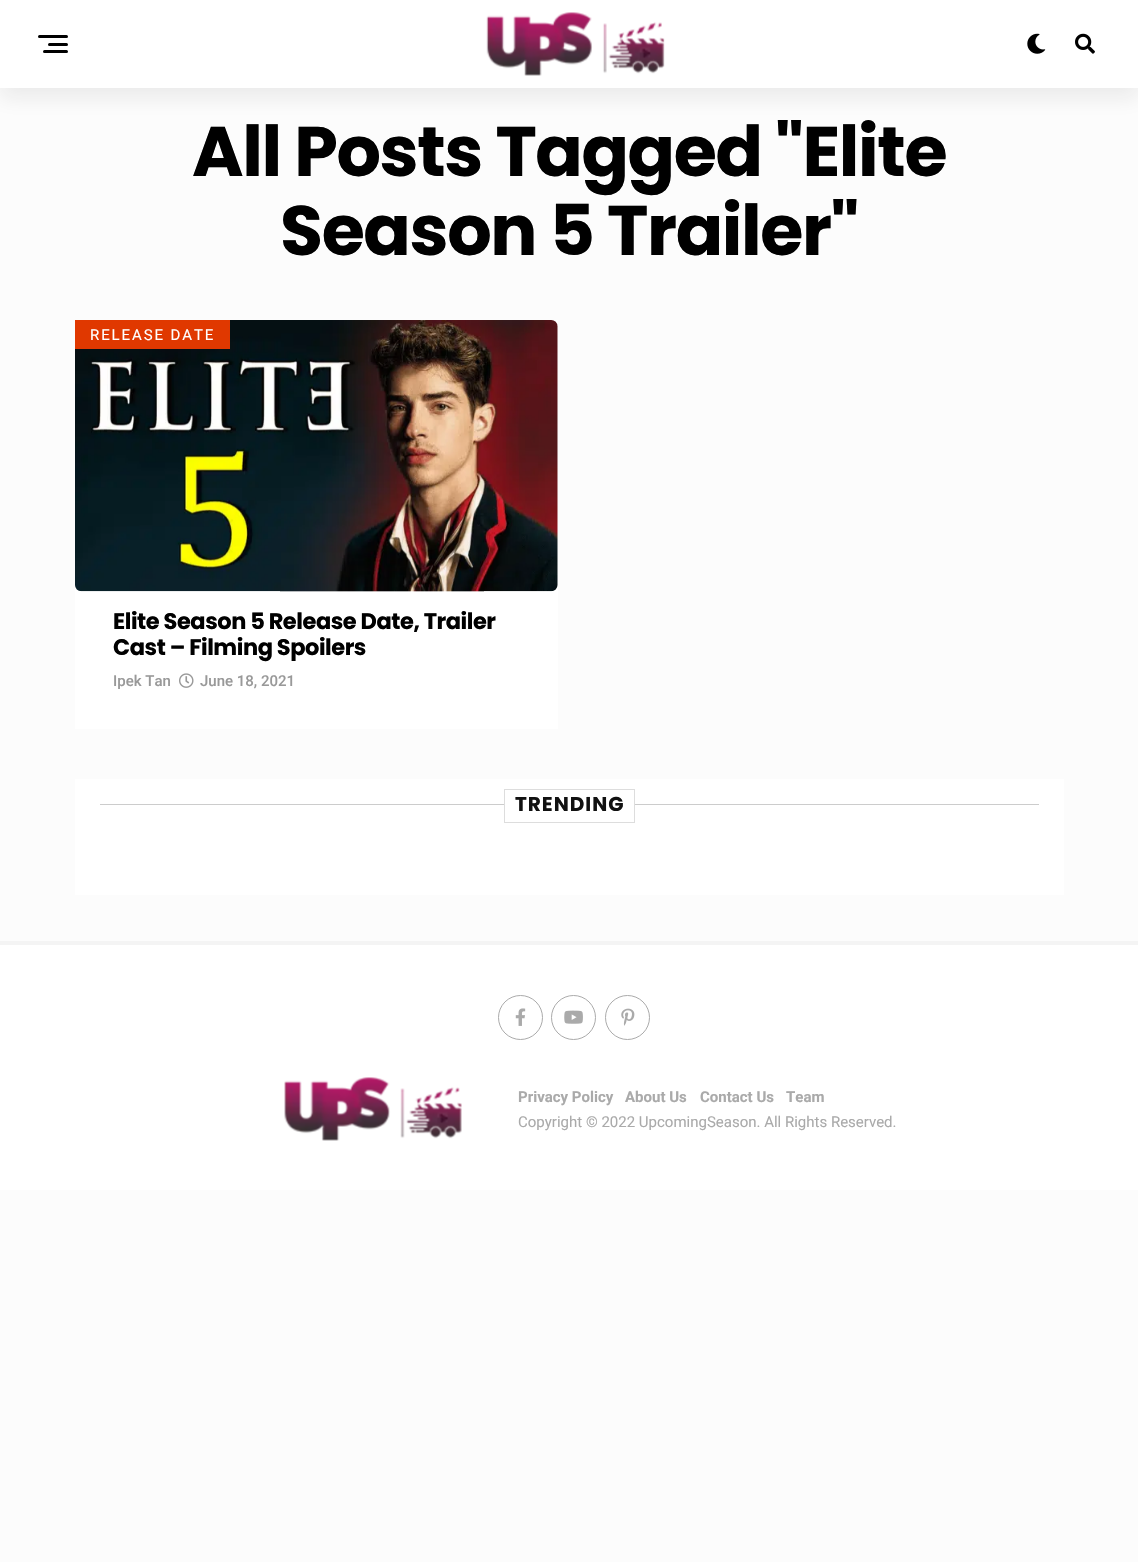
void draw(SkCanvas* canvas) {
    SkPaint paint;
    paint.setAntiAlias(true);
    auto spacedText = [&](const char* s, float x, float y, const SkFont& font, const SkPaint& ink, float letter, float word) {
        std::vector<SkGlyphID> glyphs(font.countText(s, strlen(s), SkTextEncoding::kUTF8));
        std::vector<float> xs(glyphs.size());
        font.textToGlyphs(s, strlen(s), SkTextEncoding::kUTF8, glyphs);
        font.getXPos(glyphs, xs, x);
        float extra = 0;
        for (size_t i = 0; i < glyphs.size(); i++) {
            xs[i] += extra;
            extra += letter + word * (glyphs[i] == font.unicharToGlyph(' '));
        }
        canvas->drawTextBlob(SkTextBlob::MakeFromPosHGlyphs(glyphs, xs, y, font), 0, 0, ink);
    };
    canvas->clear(0xFFFCFCFC);
    paint.setColor(0x1415151E);
    paint.setMaskFilter(SkMaskFilter::MakeBlur(kNormal_SkBlurStyle, 10));
    canvas->drawRect(SkRect::MakeXYWH(0, 10, 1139, 88), paint);
    paint.setMaskFilter(nullptr);
    paint.setColor(0xFFFFFFFF);
    canvas->drawRect(SkRect::MakeXYWH(0, 0, 1138, 88), paint);
    paint.setColor(0xFF000000);
    canvas->drawRoundRect(SkRect::MakeXYWH(38, 35, 30, 3), 1.5f, 1.5f, paint);
    canvas->drawRoundRect(SkRect::MakeXYWH(48, 43, 20, 3), 1.5f, 1.5f, paint);
    canvas->drawRoundRect(SkRect::MakeXYWH(43, 50, 25, 3), 1.5f, 1.5f, paint);
    canvas->drawImageRect(SkImages::DeferredFromEncodedData(SkData::MakeFromFileName("img1.png")), SkRect::MakeXYWH(486, 12, 179, 64), SkSamplingOptions());
    canvas->drawImageRect(SkImages::DeferredFromEncodedData(SkData::MakeFromFileName("img2.png")), SkRect::MakeXYWH(1027, 33, 19, 21), SkSamplingOptions());
    canvas->drawImageRect(SkImages::DeferredFromEncodedData(SkData::MakeFromFileName("img3.png")), SkRect::MakeXYWH(1075, 33, 20, 21), SkSamplingOptions());
    SkFont font1(fontMgr->matchFamilyStyle("Poppins", SkFontStyle::Bold()), 70);
    font1.setSubpixel(true);
    spacedText("All Posts Tagged \"Elite", 192, 176, font1, paint, -1.4f, 0);
    spacedText("Season 5 Trailer\"", 280, 255, font1, paint, -1.4f, 0);
    paint.setColor(0xFFFFFFFF);
    canvas->drawRect(SkRect::MakeXYWH(75, 320, 483, 409), paint);
    canvas->drawImageRect(SkImages::DeferredFromEncodedData(SkData::MakeFromFileName("img4.png")), SkRect::MakeXYWH(75, 320, 483, 272), SkSamplingOptions());
    paint.setColor(0xFFE03800);
    canvas->drawRect(SkRect::MakeXYWH(75, 320, 155, 29), paint);
    SkFont font2(fontMgr->matchFamilyStyle("Roboto", SkFontStyle::Normal()), 15);
    font2.setSubpixel(true);
    paint.setColor(0xFFFFFFFF);
    spacedText("RELEASE DATE", 90, 340, font2, paint, 1.9f, 0);
    SkFont font3(fontMgr->matchFamilyStyle("Poppins", SkFontStyle::Bold()), 22.5f);
    font3.setSubpixel(true);
    paint.setColor(0xFF000000);
    spacedText("Elite Season 5 Release Date, Trailer", 113, 629, font3, paint, -0.45f, 0);
    spacedText("Cast – Filming Spoilers", 113, 655, font3, paint, -0.45f, 0);
    SkFont font4(fontMgr->matchFamilyStyle("Roboto", SkFontStyle(500, SkFontStyle::kNormal_Width, SkFontStyle::kUpright_Slant)), 15);
    font4.setSubpixel(true);
    paint.setColor(0xFF999999);
    canvas->drawString("Ipek Tan", 113, 686, font4, paint);
    canvas->drawImageRect(SkImages::DeferredFromEncodedData(SkData::MakeFromFileName("img5.png")), SkRect::MakeXYWH(179, 673, 15, 15), SkSamplingOptions());
    canvas->drawString("June 18, 2021", 200, 686, font4, paint);
    paint.setColor(0xFFFFFFFF);
    canvas->drawRect(SkRect::MakeXYWH(75, 779, 989, 116), paint);
    paint.setColor(0xFFCCCCCC);
    canvas->drawRect(SkRect::MakeXYWH(100, 804, 939, 1), paint);
    paint.setColor(0xFFFFFFFF);
    canvas->drawRect(SkRect::MakeXYWH(505, 804, 129, 1), paint);
    paint.setStyle(SkPaint::kStroke_Style);
    paint.setStrokeWidth(1);
    paint.setColor(0xFFDDDDDD);
    canvas->drawRect(SkRect::MakeXYWH(504.5f, 789.5f, 130, 33), paint);
    SkFont font5(fontMgr->matchFamilyStyle("Poppins", SkFontStyle::Bold()), 20);
    font5.setSubpixel(true);
    paint.setStyle(SkPaint::kFill_Style);
    paint.setColor(0xFF111111);
    spacedText("TRENDING", 515, 811, font5, paint, 1, 0);
    paint.setColor(0xFFFFFFFF);
    canvas->drawRect(SkRect::MakeXYWH(0, 945, 1138, 245), paint);
    paint.setColor(0xFFF4F4F4);
    canvas->drawRect(SkRect::MakeXYWH(0, 941, 1138, 4), paint);
    paint.setStyle(SkPaint::kStroke_Style);
    paint.setColor(0xFFAAAAAA);
    canvas->drawCircle(520.5f, 1017.5f, 22, paint);
    canvas->drawImageRect(SkImages::DeferredFromEncodedData(SkData::MakeFromFileName("img6.png")), SkRect::MakeXYWH(515, 1008, 11, 18), SkSamplingOptions());
    canvas->drawCircle(573.5f, 1017.5f, 22, paint);
    canvas->drawImageRect(SkImages::DeferredFromEncodedData(SkData::MakeFromFileName("img7.png")), SkRect::MakeXYWH(564, 1010, 19, 14), SkSamplingOptions());
    canvas->drawCircle(627.5f, 1017.5f, 22, paint);
    canvas->drawImageRect(SkImages::DeferredFromEncodedData(SkData::MakeFromFileName("img8.png")), SkRect::MakeXYWH(621, 1008, 14, 18), SkSamplingOptions());
    canvas->drawImageRect(SkImages::DeferredFromEncodedData(SkData::MakeFromFileName("img9.png")), SkRect::MakeXYWH(284, 1077, 178, 64), SkSamplingOptions());
    SkFont font6(fontMgr->matchFamilyStyle("Roboto", SkFontStyle::Bold()), 15);
    font6.setSubpixel(true);
    paint.setStyle(SkPaint::kFill_Style);
    canvas->drawString("Privacy Policy", 518, 1102, font6, paint);
    canvas->drawString("About Us", 625, 1102, font6, paint);
    canvas->drawString("Contact Us", 700, 1102, font6, paint);
    canvas->drawString("Team", 786, 1102, font6, paint);
    canvas->drawString("Copyright © 2022 UpcomingSeason. All Rights Reserved.", 518, 1127, font2, paint);
}
